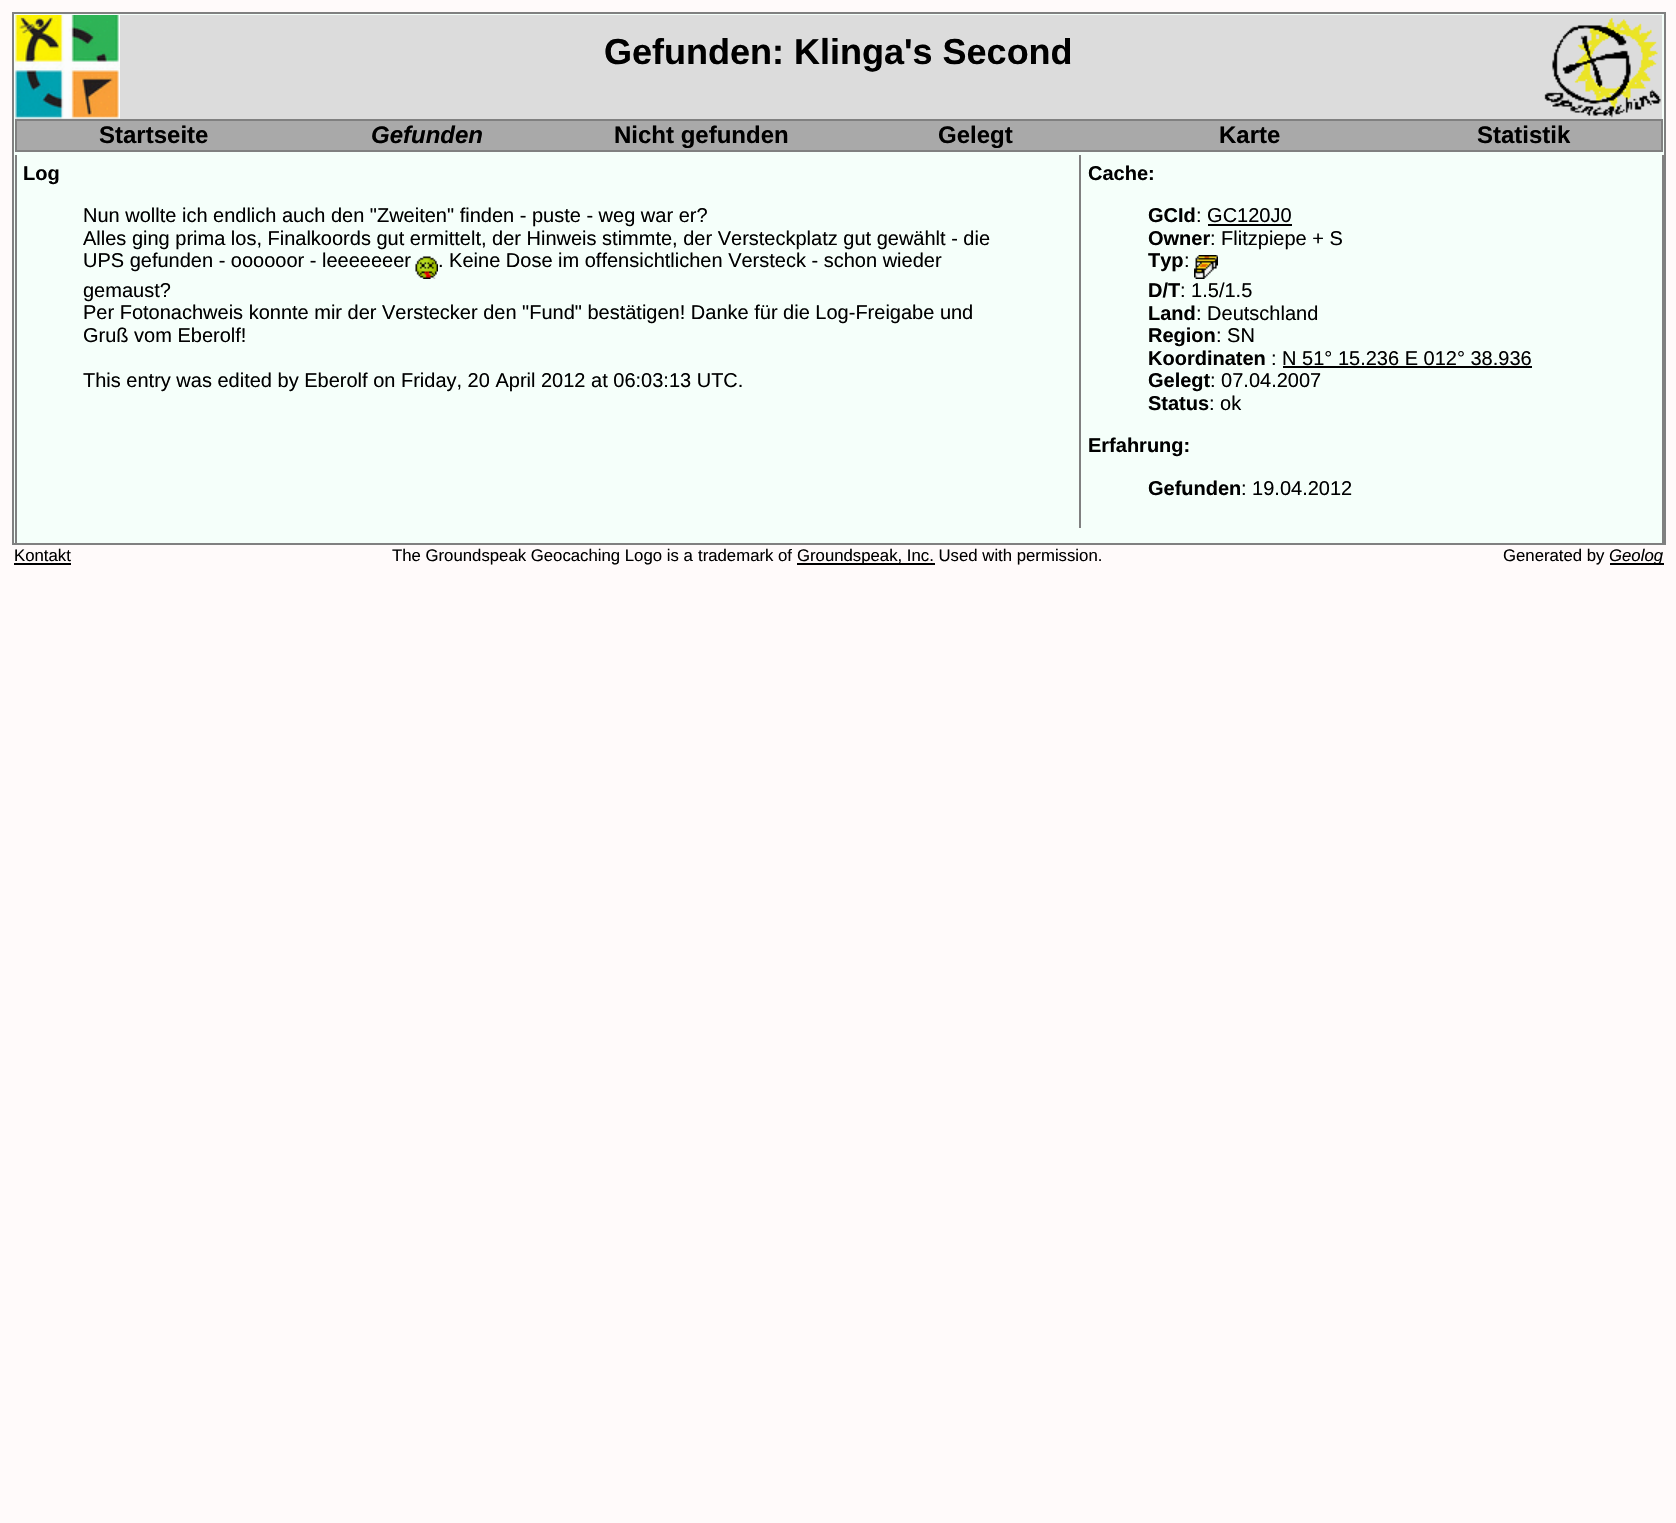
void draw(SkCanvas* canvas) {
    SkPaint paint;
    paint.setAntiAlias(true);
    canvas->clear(0xFFFFFAFA);
    paint.setColor(0xFFF5FFFA);
    canvas->drawRect(SkRect::MakeXYWH(14, 14, 1650, 529), paint);
    paint.setColor(0xFF808080);
    canvas->drawRect(SkRect::MakeXYWH(12, 12, 1653, 2), paint);
    canvas->drawRect(SkRect::MakeXYWH(1664, 12, 2, 533), paint);
    canvas->drawRect(SkRect::MakeXYWH(12, 543, 1653, 2), paint);
    canvas->drawRect(SkRect::MakeXYWH(12, 12, 2, 533), paint);
    paint.setColor(0xFFDCDCDC);
    canvas->drawRect(SkRect::MakeXYWH(15, 15, 1647, 104), paint);
    canvas->drawImageRect(SkImages::DeferredFromEncodedData(SkData::MakeFromFileName("img1.png")), SkRect::MakeXYWH(15, 15, 105, 104), SkSamplingOptions());
    SkFont font1(fontMgr->matchFamilyStyle("Liberation Sans", SkFontStyle::Bold()), 36);
    font1.setSubpixel(true);
    paint.setColor(0xFF000000);
    canvas->drawString("Gefunden: Klinga's Second", 604, 64, font1, paint);
    canvas->drawImageRect(SkImages::DeferredFromEncodedData(SkData::MakeFromFileName("img2.png")), SkRect::MakeXYWH(1544, 17, 117, 101), SkSamplingOptions());
    paint.setColor(0xFFA9A9A9);
    canvas->drawRect(SkRect::MakeXYWH(17, 121, 1644, 29), paint);
    paint.setColor(0xFF808080);
    canvas->drawRect(SkRect::MakeXYWH(15, 119, 1647, 2), paint);
    canvas->drawRect(SkRect::MakeXYWH(1661, 119, 2, 33), paint);
    canvas->drawRect(SkRect::MakeXYWH(15, 150, 1647, 2), paint);
    canvas->drawRect(SkRect::MakeXYWH(15, 119, 2, 33), paint);
    SkFont font2(fontMgr->matchFamilyStyle("Liberation Sans", SkFontStyle::Bold()), 24);
    font2.setSubpixel(true);
    paint.setColor(0xFF000000);
    canvas->drawString("Startseite", 99, 143, font2, paint);
    SkFont font3(fontMgr->matchFamilyStyle("Liberation Sans", SkFontStyle::BoldItalic()), 24);
    font3.setSubpixel(true);
    canvas->drawString("Gefunden", 371, 143, font3, paint);
    canvas->drawString("Nicht gefunden", 614, 143, font2, paint);
    canvas->drawString("Gelegt", 938, 143, font2, paint);
    canvas->drawString("Karte", 1219, 143, font2, paint);
    canvas->drawString("Statistik", 1477, 143, font2, paint);
    paint.setColor(0xFF808080);
    canvas->drawRect(SkRect::MakeXYWH(1662, 155, 2, 388), paint);
    canvas->drawRect(SkRect::MakeXYWH(15, 155, 2, 388), paint);
    SkFont font4(fontMgr->matchFamilyStyle("Liberation Sans", SkFontStyle::Bold()), 20);
    font4.setSubpixel(true);
    paint.setColor(0xFF000000);
    canvas->drawString("Log", 23, 180, font4, paint);
    SkFont font5(fontMgr->matchFamilyStyle("Liberation Sans", SkFontStyle::Normal()), 20);
    font5.setSubpixel(true);
    canvas->drawString("Nun wollte ich endlich auch den \"Zweiten\" finden - puste - weg war er?", 83, 222, font5, paint);
    canvas->drawString("Alles ging prima los, Finalkoords gut ermittelt, der Hinweis stimmte, der Versteckplatz gut gewählt - die", 83, 245, font5, paint);
    canvas->drawString("UPS gefunden - oooooor - leeeeeeer", 83, 267, font5, paint);
    canvas->drawImageRect(SkImages::DeferredFromEncodedData(SkData::MakeFromFileName("img3.png")), SkRect::MakeXYWH(415, 256, 23, 23), SkSamplingOptions());
    canvas->drawString(". Keine Dose im offensichtlichen Versteck - schon wieder", 438, 267, font5, paint);
    canvas->drawString("gemaust?", 83, 297, font5, paint);
    canvas->drawString("Per Fotonachweis konnte mir der Verstecker den \"Fund\" bestätigen! Danke für die Log-Freigabe und", 83, 319, font5, paint);
    canvas->drawString("Gruß vom Eberolf!", 83, 342, font5, paint);
    canvas->drawString("This entry was edited by Eberolf on Friday, 20 April 2012 at 06:03:13 UTC.", 83, 387, font5, paint);
    paint.setColor(0xFF808080);
    canvas->drawRect(SkRect::MakeXYWH(1079, 155, 2, 373), paint);
    paint.setColor(0xFF000000);
    canvas->drawString("Cache:", 1088, 180, font4, paint);
    canvas->drawString("GCId", 1148, 222, font4, paint);
    canvas->drawString(": GC120J0", 1196, 222, font5, paint);
    canvas->drawRect(SkRect::MakeXYWH(1208, 224, 84, 2), paint);
    canvas->drawString("Owner", 1148, 245, font4, paint);
    canvas->drawString(": Flitzpiepe + S", 1210, 245, font5, paint);
    canvas->drawString("Typ", 1148, 267, font4, paint);
    canvas->drawString(":", 1184, 267, font5, paint);
    canvas->drawImageRect(SkImages::DeferredFromEncodedData(SkData::MakeFromFileName("img4.png")), SkRect::MakeXYWH(1194, 255, 24, 24), SkSamplingOptions());
    canvas->drawString("D/T", 1148, 297, font4, paint);
    canvas->drawString(": 1.5/1.5", 1180, 297, font5, paint);
    canvas->drawString("Land", 1148, 320, font4, paint);
    canvas->drawString(": Deutschland", 1196, 320, font5, paint);
    canvas->drawString("Region", 1148, 342, font4, paint);
    canvas->drawString(": SN", 1216, 342, font5, paint);
    canvas->drawString("Koordinaten", 1148, 365, font4, paint);
    canvas->drawString(": N 51° 15.236 E 012° 38.936", 1271, 365, font5, paint);
    canvas->drawRect(SkRect::MakeXYWH(1283, 366, 249, 2), paint);
    canvas->drawString("Gelegt", 1148, 387, font4, paint);
    canvas->drawString(": 07.04.2007", 1210, 387, font5, paint);
    canvas->drawString("Status", 1148, 410, font4, paint);
    canvas->drawString(": ok", 1209, 410, font5, paint);
    canvas->drawString("Erfahrung:", 1088, 452, font4, paint);
    canvas->drawString("Gefunden", 1148, 495, font4, paint);
    canvas->drawString(": 19.04.2012", 1241, 495, font5, paint);
    SkFont font6(fontMgr->matchFamilyStyle("Liberation Sans", SkFontStyle::Normal()), 16.75f);
    font6.setSubpixel(true);
    canvas->drawString("Kontakt", 14, 561, font6, paint);
    canvas->drawRect(SkRect::MakeXYWH(14, 563, 57, 2), paint);
    canvas->drawString("The Groundspeak Geocaching Logo is a", 392, 561, font6, paint);
    canvas->drawString("trademark of", 698, 561, font6, paint);
    canvas->drawRect(SkRect::MakeXYWH(797, 563, 138, 2), paint);
    canvas->drawString("Groundspeak, Inc. Used with permission.", 797, 561, font6, paint);
    canvas->drawString("Generated by", 1503, 561, font6, paint);
    canvas->drawRect(SkRect::MakeXYWH(1610, 563, 54, 2), paint);
    SkFont font7(fontMgr->matchFamilyStyle("Liberation Sans", SkFontStyle::Italic()), 16.75f);
    font7.setSubpixel(true);
    canvas->drawString("Geolog", 1609, 561, font7, paint);
}
